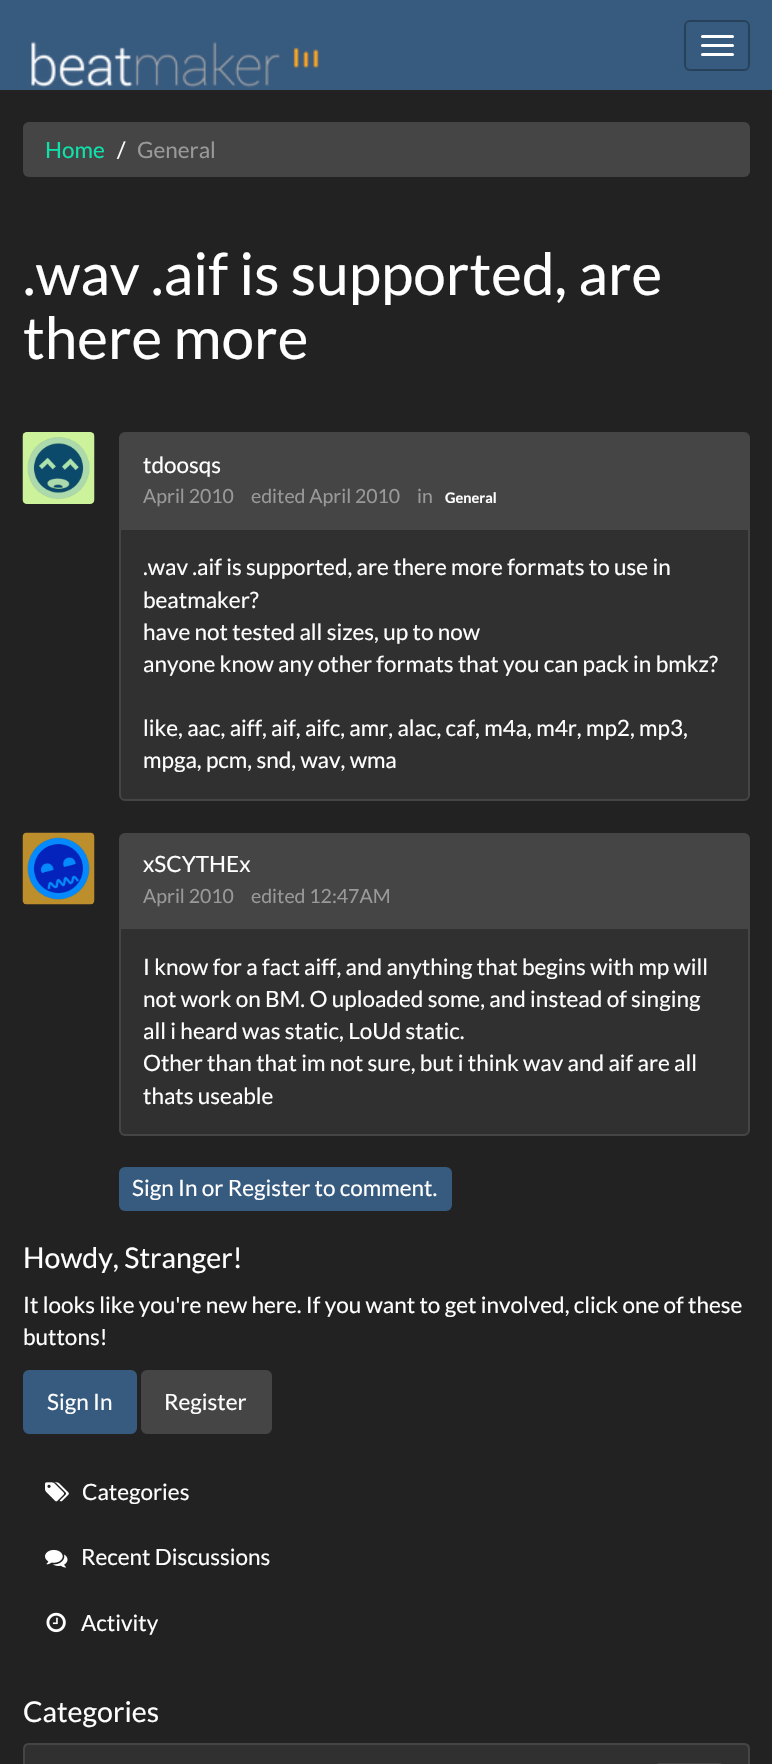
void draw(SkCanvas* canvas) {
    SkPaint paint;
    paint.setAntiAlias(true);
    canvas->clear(0xFF222222);
    paint.setColor(0xFF375A7F);
    canvas->drawRect(SkRect::MakeXYWH(0, 0, 772, 90), paint);
    canvas->drawImageRect(SkImages::DeferredFromEncodedData(SkData::MakeFromFileName("img1.png")), SkRect::MakeXYWH(31, 41, 288, 47), SkSamplingOptions());
    paint.setStyle(SkPaint::kStroke_Style);
    paint.setStrokeWidth(2);
    paint.setColor(0xFF28415B);
    canvas->drawRoundRect(SkRect::MakeXYWH(685, 21, 64, 49), 5, 5, paint);
    paint.setStyle(SkPaint::kFill_Style);
    paint.setColor(0xFFFFFFFF);
    canvas->drawRoundRect(SkRect::MakeXYWH(701, 35, 33, 3), 1.5f, 1.5f, paint);
    canvas->drawRoundRect(SkRect::MakeXYWH(701, 44, 33, 3), 1.5f, 1.5f, paint);
    canvas->drawRoundRect(SkRect::MakeXYWH(701, 53, 33, 3), 1.5f, 1.5f, paint);
    paint.setColor(0xFF464545);
    canvas->drawRoundRect(SkRect::MakeXYWH(23, 122, 727, 55), 6, 6, paint);
    SkFont font1(fontMgr->matchFamilyStyle("Lato", SkFontStyle::Normal()), 22.5f);
    font1.setSubpixel(true);
    paint.setColor(0xFF0CE3AC);
    canvas->drawString("Home", 45, 158, font1, paint);
    paint.setColor(0xFFFFFFFF);
    canvas->drawString("/", 117, 158, font1, paint);
    paint.setColor(0xFF999999);
    canvas->drawString("General", 137, 158, font1, paint);
    SkFont font2(fontMgr->matchFamilyStyle("Lato", SkFontStyle::Normal()), 58.5f);
    font2.setSubpixel(true);
    paint.setColor(0xFFFFFFFF);
    canvas->drawString(".wav .aif is supported, are", 23, 295, font2, paint);
    canvas->drawString("there more", 23, 359, font2, paint);
    paint.setColor(0xFF303030);
    canvas->drawRoundRect(SkRect::MakeXYWH(120, 433, 629, 367), 5, 5, paint);
    paint.setStyle(SkPaint::kStroke_Style);
    paint.setColor(0xFF464545);
    canvas->drawRoundRect(SkRect::MakeXYWH(120, 433, 629, 367), 5, 5, paint);
    paint.setStyle(SkPaint::kFill_Style);
    canvas->drawPath(SkPathBuilder().moveTo(125, 434).lineTo(744, 434).cubicTo(747, 434, 749, 436, 749, 439).lineTo(749, 530).lineTo(120, 530).lineTo(120, 439).cubicTo(120, 436, 122, 434, 125, 434).close().detach(), paint);
    canvas->drawImageRect(SkImages::DeferredFromEncodedData(SkData::MakeFromFileName("img2.png")), SkRect::MakeXYWH(22, 432, 73, 72), SkSamplingOptions());
    paint.setColor(0xFFFFFFFF);
    canvas->drawString("tdoosqs", 143, 473, font1, paint);
    SkFont font3(fontMgr->matchFamilyStyle("Lato", SkFontStyle::Normal()), 19.5f);
    font3.setSubpixel(true);
    paint.setColor(0xFF999999);
    canvas->drawString("April 2010", 143, 503, font3, paint);
    canvas->drawString("edited April 2010", 251, 503, font3, paint);
    canvas->drawString("in", 417, 503, font3, paint);
    SkFont font4(fontMgr->matchFamilyStyle("Lato", SkFontStyle::Bold()), 14.5f);
    font4.setSubpixel(true);
    paint.setColor(0xFFFFFFFF);
    canvas->drawString("General", 445, 503, font4, paint);
    canvas->drawString(".wav .aif is supported, are there more formats to use in", 143, 575, font1, paint);
    canvas->drawString("beatmaker?", 143, 608, font1, paint);
    canvas->drawString("have not tested all sizes, up to now", 143, 640, font1, paint);
    canvas->drawString("anyone know any other formats that you can pack in bmkz?", 143, 672, font1, paint);
    canvas->drawString("like, aac, aiff, aif, aifc, amr, alac, caf, m4a, m4r, mp2, mp3,", 143, 736, font1, paint);
    canvas->drawString("mpga, pcm, snd, wav, wma", 143, 768, font1, paint);
    paint.setColor(0xFF303030);
    canvas->drawRoundRect(SkRect::MakeXYWH(120, 834, 629, 301), 5, 5, paint);
    paint.setStyle(SkPaint::kStroke_Style);
    paint.setColor(0xFF464545);
    canvas->drawRoundRect(SkRect::MakeXYWH(120, 834, 629, 301), 5, 5, paint);
    paint.setStyle(SkPaint::kFill_Style);
    canvas->drawPath(SkPathBuilder().moveTo(125, 834).lineTo(744, 834).cubicTo(747, 834, 749, 836, 749, 839).lineTo(749, 929).lineTo(120, 929).lineTo(120, 839).cubicTo(120, 836, 122, 834, 125, 834).close().detach(), paint);
    canvas->drawImageRect(SkImages::DeferredFromEncodedData(SkData::MakeFromFileName("img3.png")), SkRect::MakeXYWH(22, 832, 73, 73), SkSamplingOptions());
    paint.setColor(0xFFFFFFFF);
    canvas->drawString("xSCYTHEx", 143, 872, font1, paint);
    paint.setColor(0xFF999999);
    canvas->drawString("April 2010", 143, 903, font3, paint);
    canvas->drawString("edited 12:47AM", 251, 903, font3, paint);
    paint.setColor(0xFFFFFFFF);
    canvas->drawString("I know for a fact aiff, and anything that begins with mp will", 143, 975, font1, paint);
    canvas->drawString("not work on BM. O uploaded some, and instead of singing", 143, 1007, font1, paint);
    canvas->drawString("all i heard was static, LoUd static.", 143, 1039, font1, paint);
    canvas->drawString("Other than that im not sure, but i think wav and aif are all", 143, 1071, font1, paint);
    canvas->drawString("thats useable", 143, 1104, font1, paint);
    paint.setColor(0xFF375A7F);
    canvas->drawRoundRect(SkRect::MakeXYWH(119, 1167, 333, 44), 6, 6, paint);
    paint.setColor(0xFFFFFFFF);
    canvas->drawString("Sign In or Register to comment.", 132, 1196, font1, paint);
    SkFont font5(fontMgr->matchFamilyStyle("Lato", SkFontStyle::Normal()), 28.5f);
    font5.setSubpixel(true);
    canvas->drawString("Howdy, Stranger!", 23, 1268, font5, paint);
    canvas->drawString("It looks like you're new here. If you want to get involved, click one of these", 23, 1313, font1, paint);
    canvas->drawString("buttons!", 23, 1345, font1, paint);
    paint.setColor(0xFF375A7F);
    canvas->drawRoundRect(SkRect::MakeXYWH(24, 1371, 112, 62), 5, 5, paint);
    paint.setStyle(SkPaint::kStroke_Style);
    canvas->drawRoundRect(SkRect::MakeXYWH(24, 1371, 112, 62), 5, 5, paint);
    paint.setStyle(SkPaint::kFill_Style);
    paint.setColor(0xFFFFFFFF);
    canvas->drawString("Sign In", 47, 1410, font1, paint);
    paint.setColor(0xFF464545);
    canvas->drawRoundRect(SkRect::MakeXYWH(142, 1371, 129, 62), 5, 5, paint);
    paint.setStyle(SkPaint::kStroke_Style);
    canvas->drawRoundRect(SkRect::MakeXYWH(142, 1371, 129, 62), 5, 5, paint);
    paint.setStyle(SkPaint::kFill_Style);
    paint.setColor(0xFFFFFFFF);
    canvas->drawString("Register", 164, 1410, font1, paint);
    canvas->drawImageRect(SkImages::DeferredFromEncodedData(SkData::MakeFromFileName("img4.png")), SkRect::MakeXYWH(45, 1482, 24, 20), SkSamplingOptions());
    canvas->drawString("Categories", 82, 1500, font1, paint);
    canvas->drawImageRect(SkImages::DeferredFromEncodedData(SkData::MakeFromFileName("img5.png")), SkRect::MakeXYWH(45, 1549, 23, 19), SkSamplingOptions());
    canvas->drawString("Recent Discussions", 81, 1565, font1, paint);
    canvas->drawImageRect(SkImages::DeferredFromEncodedData(SkData::MakeFromFileName("img6.png")), SkRect::MakeXYWH(46, 1612, 20, 21), SkSamplingOptions());
    canvas->drawString("Activity", 81, 1631, font1, paint);
    canvas->drawString("Categories", 23, 1722, font5, paint);
    paint.setColor(0xFF303030);
    canvas->drawPath(SkPathBuilder().moveTo(29, 1744).lineTo(744, 1744).cubicTo(747, 1744, 749, 1746, 749, 1749).lineTo(749, 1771).lineTo(24, 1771).lineTo(24, 1749).cubicTo(24, 1746, 26, 1744, 29, 1744).close().detach(), paint);
    paint.setStyle(SkPaint::kStroke_Style);
    paint.setColor(0xFF464545);
    canvas->drawPath(SkPathBuilder().moveTo(29, 1744).lineTo(744, 1744).cubicTo(747, 1744, 749, 1746, 749, 1749).lineTo(749, 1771).lineTo(24, 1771).lineTo(24, 1749).cubicTo(24, 1746, 26, 1744, 29, 1744).close().detach(), paint);
    paint.setStyle(SkPaint::kFill_Style);
    canvas->drawRoundRect(SkRect::MakeXYWH(653, 1763, 73, 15), 14, 14, paint);
}
